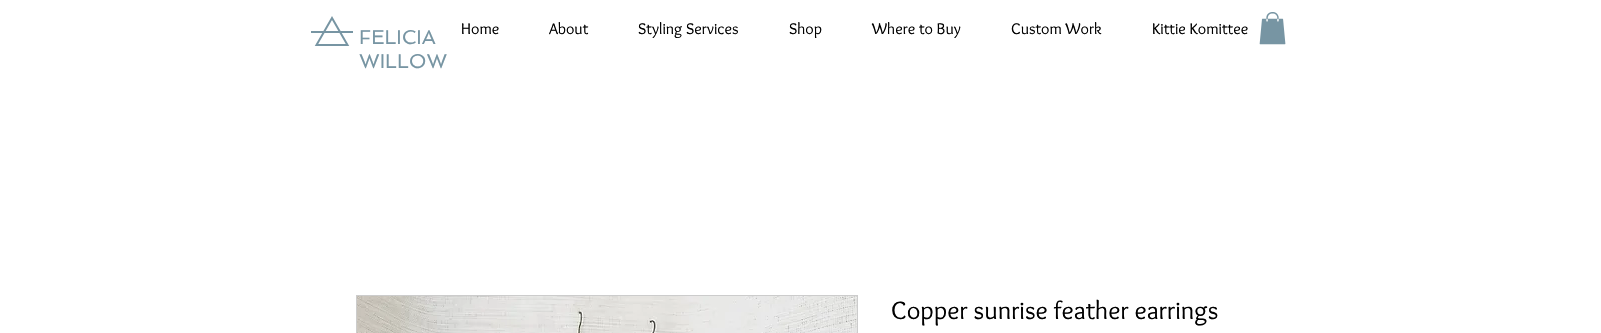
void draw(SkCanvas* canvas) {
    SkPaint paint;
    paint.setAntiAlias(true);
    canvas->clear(0xFFFFFFFF);
    paint.setStyle(SkPaint::kStroke_Style);
    paint.setStrokeWidth(2);
    paint.setColor(0xFF7795A3);
    canvas->drawPath(SkPathBuilder().moveTo(332, 18).lineTo(347.5f, 45).lineTo(316.5f, 45).close().detach(), paint);
    SkFont font1(fontMgr->matchFamilyStyle("Spinnaker", SkFontStyle::Normal()), 20);
    font1.setSubpixel(true);
    paint.setStyle(SkPaint::kFill_Style);
    canvas->drawString("FELICIA", 359, 44, font1, paint);
    canvas->drawString("WILLOW", 359, 68, font1, paint);
    SkFont font2(fontMgr->matchFamilyStyle("Overlock", SkFontStyle::Normal()), 16);
    font2.setSubpixel(true);
    paint.setColor(0xFF000000);
    canvas->drawString("Home", 461, 34, font2, paint);
    canvas->drawString("About", 549, 34, font2, paint);
    canvas->drawString("Styling Services", 638, 34, font2, paint);
    canvas->drawString("Shop", 789, 34, font2, paint);
    canvas->drawString("Where to Buy", 872, 34, font2, paint);
    canvas->drawString("Custom Work", 1011, 34, font2, paint);
    canvas->drawString("Kittie Komittee", 1152, 34, font2, paint);
    canvas->drawImageRect(SkImages::DeferredFromEncodedData(SkData::MakeFromFileName("img1.png")), SkRect::MakeXYWH(1259, 12, 27, 33), SkSamplingOptions());
    paint.setColor(0xFF7795A3);
    canvas->drawRect(SkRect::MakeXYWH(311, 31, 42, 2), paint);
    paint.setStyle(SkPaint::kStroke_Style);
    paint.setStrokeWidth(1);
    paint.setColor(0xFFCCCCCC);
    canvas->drawRect(SkRect::MakeXYWH(356.5f, 295.5f, 501, 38), paint);
    canvas->drawImageRect(SkImages::DeferredFromEncodedData(SkData::MakeFromFileName("img2.png")), SkRect::MakeXYWH(357, 296, 500, 37), SkSamplingOptions());
    SkFont font3(fontMgr->matchFamilyStyle("Overlock", SkFontStyle::Normal()), 26);
    font3.setSubpixel(true);
    paint.setStyle(SkPaint::kFill_Style);
    paint.setColor(0xFF000000);
    canvas->drawString("Copper sunrise feather earrings", 891, 319, font3, paint);
}
